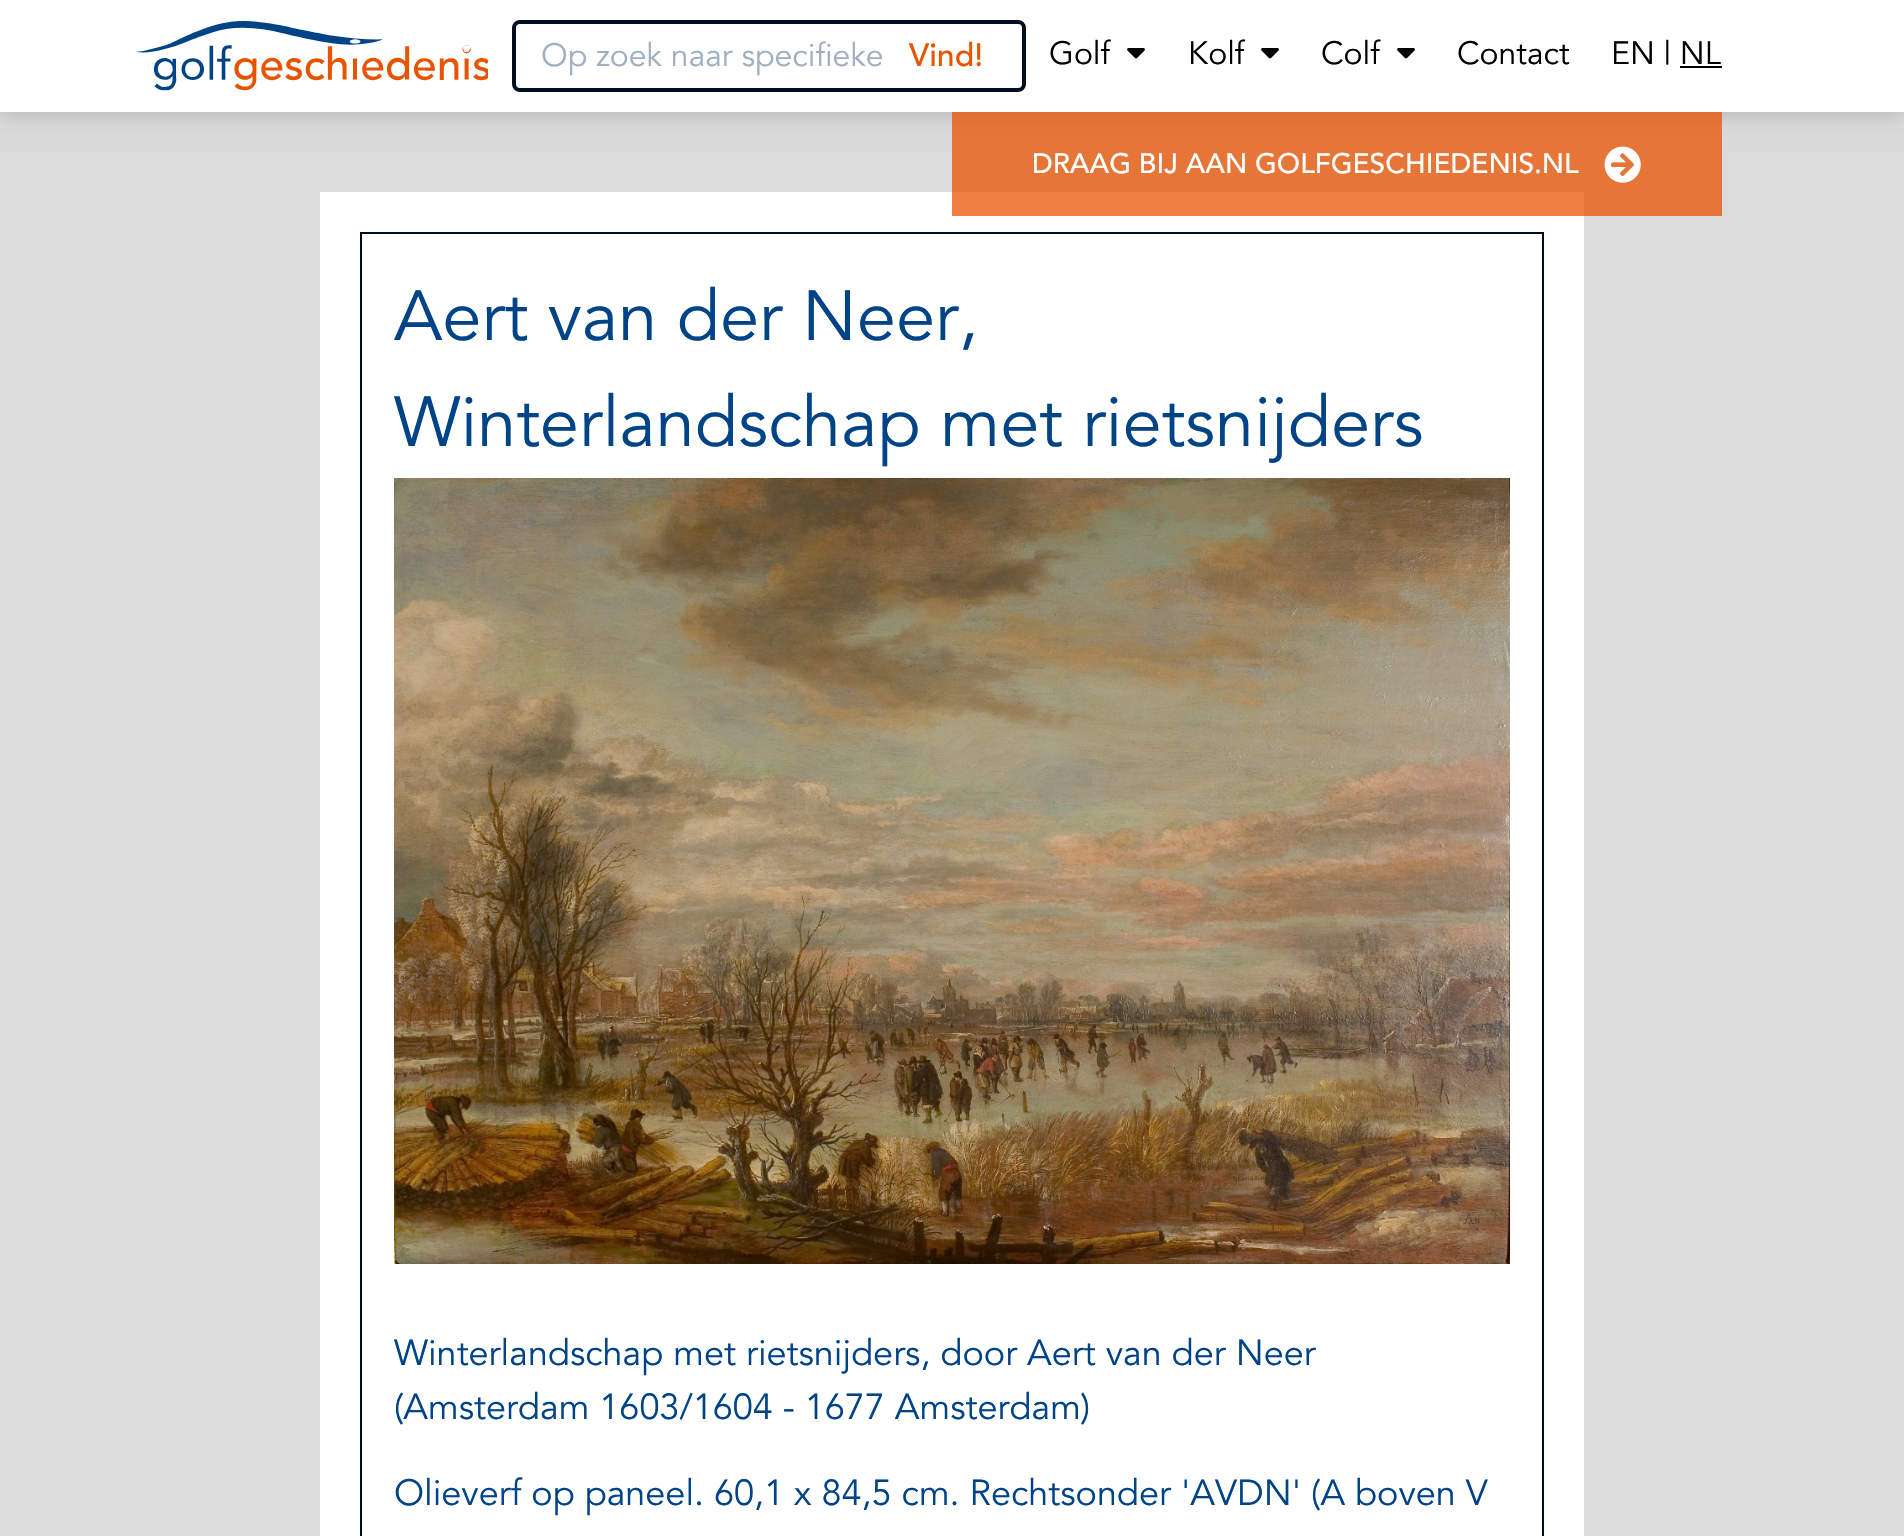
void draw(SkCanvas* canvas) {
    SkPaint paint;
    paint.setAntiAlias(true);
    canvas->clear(0xFFDBDBDB);
    paint.setColor(0x29000000);
    paint.setMaskFilter(SkMaskFilter::MakeBlur(kNormal_SkBlurStyle, 10));
    canvas->drawRect(SkRect::MakeXYWH(0, 4, 1904, 112), paint);
    paint.setMaskFilter(nullptr);
    paint.setColor(0xFFFFFFFF);
    canvas->drawRect(SkRect::MakeXYWH(0, 0, 1904, 112), paint);
    canvas->drawImageRect(SkImages::DeferredFromEncodedData(SkData::MakeFromFileName("img1.png")), SkRect::MakeXYWH(136, 21, 352, 70), SkSamplingOptions());
    paint.setStyle(SkPaint::kStroke_Style);
    paint.setStrokeWidth(4);
    paint.setColor(0xFF000D1F);
    canvas->drawRoundRect(SkRect::MakeXYWH(514, 22, 510, 68), 6, 6, paint);
    SkFont font1(fontMgr->matchFamilyStyle("Avenir", SkFontStyle::Normal()), 32);
    font1.setSubpixel(true);
    paint.setStyle(SkPaint::kFill_Style);
    paint.setColor(0xFFA0AEC0);
    canvas->drawString("Op zoek naar specifieke", 541, 66, font1, paint);
    SkFont font2(fontMgr->matchFamilyStyle("Avenir", SkFontStyle(500, SkFontStyle::kNormal_Width, SkFontStyle::kUpright_Slant)), 32);
    font2.setSubpixel(true);
    paint.setColor(0xFFE85400);
    canvas->drawString("Vind!", 909, 66, font2, paint);
    paint.setColor(0xFF000000);
    canvas->drawString("Golf", 1049, 64, font1, paint);
    canvas->drawImageRect(SkImages::DeferredFromEncodedData(SkData::MakeFromFileName("img2.png")), SkRect::MakeXYWH(1127, 48, 18, 11), SkSamplingOptions());
    canvas->drawString("Kolf", 1188, 64, font1, paint);
    canvas->drawImageRect(SkImages::DeferredFromEncodedData(SkData::MakeFromFileName("img2.png")), SkRect::MakeXYWH(1261, 48, 18, 11), SkSamplingOptions());
    canvas->drawString("Colf", 1321, 64, font1, paint);
    canvas->drawImageRect(SkImages::DeferredFromEncodedData(SkData::MakeFromFileName("img2.png")), SkRect::MakeXYWH(1397, 48, 18, 11), SkSamplingOptions());
    canvas->drawString("Contact", 1457, 64, font1, paint);
    canvas->drawString("EN | NL", 1611, 64, font1, paint);
    canvas->drawRect(SkRect::MakeXYWH(1680, 66, 42, 2), paint);
    paint.setColor(0xFFFFFFFF);
    canvas->drawRect(SkRect::MakeXYWH(320, 192, 1264, 1344), paint);
    paint.setColor(0xBFE85400);
    canvas->drawRect(SkRect::MakeXYWH(952, 112, 770, 104), paint);
    SkFont font3(fontMgr->matchFamilyStyle("Avenir", SkFontStyle(500, SkFontStyle::kNormal_Width, SkFontStyle::kUpright_Slant)), 28);
    font3.setSubpixel(true);
    paint.setColor(0xFFFFFFFF);
    canvas->drawString("DRAAG BIJ AAN GOLFGESCHIEDENIS.NL", 1032, 173, font3, paint);
    canvas->drawImageRect(SkImages::DeferredFromEncodedData(SkData::MakeFromFileName("img3.png")), SkRect::MakeXYWH(1604, 146, 37, 37), SkSamplingOptions());
    paint.setStyle(SkPaint::kStroke_Style);
    paint.setStrokeWidth(2);
    paint.setColor(0xFF000D1F);
    canvas->drawRect(SkRect::MakeXYWH(361, 233, 1182, 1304), paint);
    SkFont font4(fontMgr->matchFamilyStyle("Avenir", SkFontStyle::Normal()), 70.4f);
    font4.setSubpixel(true);
    paint.setStyle(SkPaint::kFill_Style);
    paint.setColor(0xFF004487);
    canvas->drawString("Aert van der Neer,", 394, 340, font4, paint);
    canvas->drawString("Winterlandschap met rietsnijders", 394, 446, font4, paint);
    canvas->drawImageRect(SkImages::DeferredFromEncodedData(SkData::MakeFromFileName("img4.png")), SkRect::MakeXYWH(394, 478, 1116, 786), SkSamplingOptions());
    SkFont font5(fontMgr->matchFamilyStyle("Avenir", SkFontStyle::Normal()), 36);
    font5.setSubpixel(true);
    canvas->drawString("Winterlandschap met rietsnijders, door Aert van der Neer", 394, 1365, font5, paint);
    canvas->drawString("(Amsterdam 1603/1604 - 1677 Amsterdam)", 394, 1419, font5, paint);
    canvas->drawString("Olieverf op paneel. 60,1 x 84,5 cm. Rechtsonder 'AVDN' (A boven V", 394, 1505, font5, paint);
}
